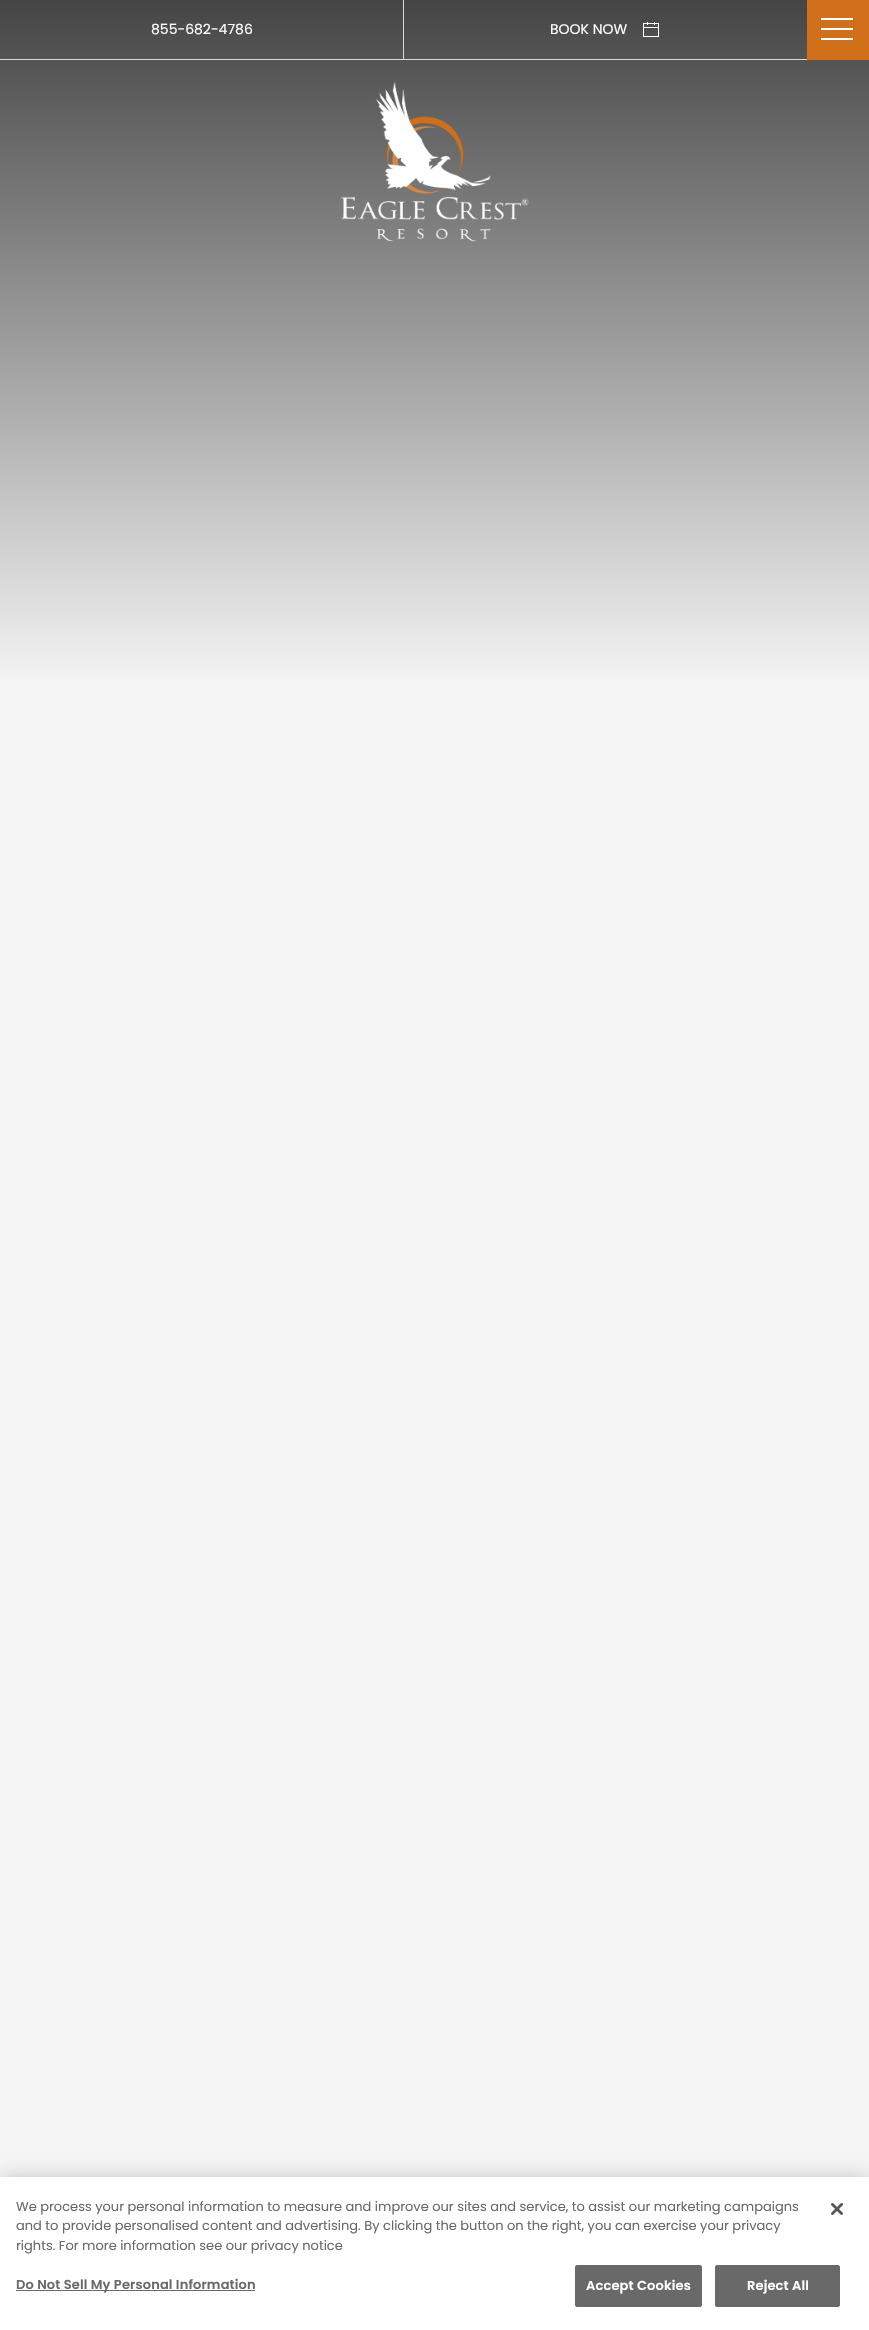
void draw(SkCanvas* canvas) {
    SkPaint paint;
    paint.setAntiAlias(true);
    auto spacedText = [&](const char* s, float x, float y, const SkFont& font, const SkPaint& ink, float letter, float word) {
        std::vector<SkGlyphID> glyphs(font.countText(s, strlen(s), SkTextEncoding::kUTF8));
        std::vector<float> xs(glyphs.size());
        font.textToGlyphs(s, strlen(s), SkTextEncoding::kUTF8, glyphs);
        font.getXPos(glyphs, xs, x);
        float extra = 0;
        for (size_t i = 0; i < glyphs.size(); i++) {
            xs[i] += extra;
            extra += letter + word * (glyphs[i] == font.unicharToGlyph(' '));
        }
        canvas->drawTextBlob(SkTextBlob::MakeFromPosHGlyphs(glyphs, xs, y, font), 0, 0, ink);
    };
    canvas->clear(0xFFF5F5F5);
    {
        const SkColor colors[] = {0xFFF6F6F6, 0xFF454545};
        const float stops[] = {0, 1};
        const SkPoint ends[] = {{435, 693}, {435, 0}};
        paint.setShader(SkGradientShader::MakeLinear(ends, colors, stops, 2, SkTileMode::kClamp));
        paint.setAlpha(255);
    }
    canvas->drawRect(SkRect::MakeXYWH(0, 0, 869, 679), paint);
    paint.setShader(nullptr);
    paint.setColor(0xFFDADADA);
    canvas->drawRect(SkRect::MakeXYWH(0, 59, 807, 1), paint);
    SkFont font1(fontMgr->matchFamilyStyle("Poppins", SkFontStyle::Normal()), 14);
    font1.setSubpixel(true);
    paint.setColor(0xFFFFFFFF);
    canvas->drawString("855-682-4786", 151, 34, font1, paint);
    paint.setColor(0xFFDADADA);
    canvas->drawRect(SkRect::MakeXYWH(403, 0, 1, 60), paint);
    paint.setColor(0xFFFFFFFF);
    canvas->drawString("BOOK NOW", 550, 34, font1, paint);
    canvas->drawImageRect(SkImages::DeferredFromEncodedData(SkData::MakeFromFileName("img1.png")), SkRect::MakeXYWH(643, 22, 16, 15), SkSamplingOptions());
    paint.setColor(0xFFD1701A);
    canvas->drawRect(SkRect::MakeXYWH(807, 0, 62, 60), paint);
    paint.setColor(0xFFFFFFFF);
    canvas->drawRect(SkRect::MakeXYWH(821, 18, 32, 2), paint);
    canvas->drawRect(SkRect::MakeXYWH(821, 28, 32, 2), paint);
    canvas->drawRect(SkRect::MakeXYWH(821, 38, 32, 2), paint);
    canvas->drawImageRect(SkImages::DeferredFromEncodedData(SkData::MakeFromFileName("img2.png")), SkRect::MakeXYWH(340, 81, 189, 161), SkSamplingOptions());
    paint.setColor(0x33000000);
    paint.setMaskFilter(SkMaskFilter::MakeBlur(kNormal_SkBlurStyle, 9));
    canvas->drawRect(SkRect::MakeXYWH(0, 2177, 869, 153), paint);
    paint.setMaskFilter(nullptr);
    paint.setColor(0xFFFFFFFF);
    canvas->drawRect(SkRect::MakeXYWH(0, 2177, 869, 153), paint);
    SkFont font2(fontMgr->matchFamilyStyle("Poppins", SkFontStyle::Normal()), 13);
    font2.setSubpixel(true);
    paint.setColor(0xFF696969);
    canvas->drawString("We process your personal information to measure and improve our sites and service, to assist our marketing campaigns", 16, 2211, font2, paint);
    canvas->drawString("and to provide personalised content and advertising. By clicking the button on the right, you can exercise your privacy", 16, 2230, font2, paint);
    canvas->drawString("rights. For more information see our privacy notice", 16, 2250, font2, paint);
    canvas->drawRect(SkRect::MakeXYWH(16, 2290, 239, 1), paint);
    SkFont font3(fontMgr->matchFamilyStyle("Poppins", SkFontStyle(600, SkFontStyle::kNormal_Width, SkFontStyle::kUpright_Slant)), 13);
    font3.setSubpixel(true);
    spacedText("Do Not Sell My Personal Information", 16, 2289, font3, paint, 0.15f, 0);
    canvas->drawRoundRect(SkRect::MakeXYWH(575.5f, 2265.5f, 126, 41), 1.5f, 1.5f, paint);
    paint.setStyle(SkPaint::kStroke_Style);
    paint.setStrokeWidth(1);
    canvas->drawRoundRect(SkRect::MakeXYWH(575.5f, 2265.5f, 126, 41), 1.5f, 1.5f, paint);
    paint.setStyle(SkPaint::kFill_Style);
    paint.setColor(0xFFFFFFFF);
    spacedText("Accept Cookies", 586, 2290, font3, paint, 0.15f, 0);
    paint.setColor(0xFF696969);
    canvas->drawRoundRect(SkRect::MakeXYWH(715.5f, 2265.5f, 124, 41), 1.5f, 1.5f, paint);
    paint.setStyle(SkPaint::kStroke_Style);
    canvas->drawRoundRect(SkRect::MakeXYWH(715.5f, 2265.5f, 124, 41), 1.5f, 1.5f, paint);
    paint.setStyle(SkPaint::kFill_Style);
    paint.setColor(0xFFFFFFFF);
    spacedText("Reject All", 747, 2290, font3, paint, 0.15f, 0);
    canvas->drawImageRect(SkImages::DeferredFromEncodedData(SkData::MakeFromFileName("img3.png")), SkRect::MakeXYWH(831, 2203, 12, 12), SkSamplingOptions());
}
